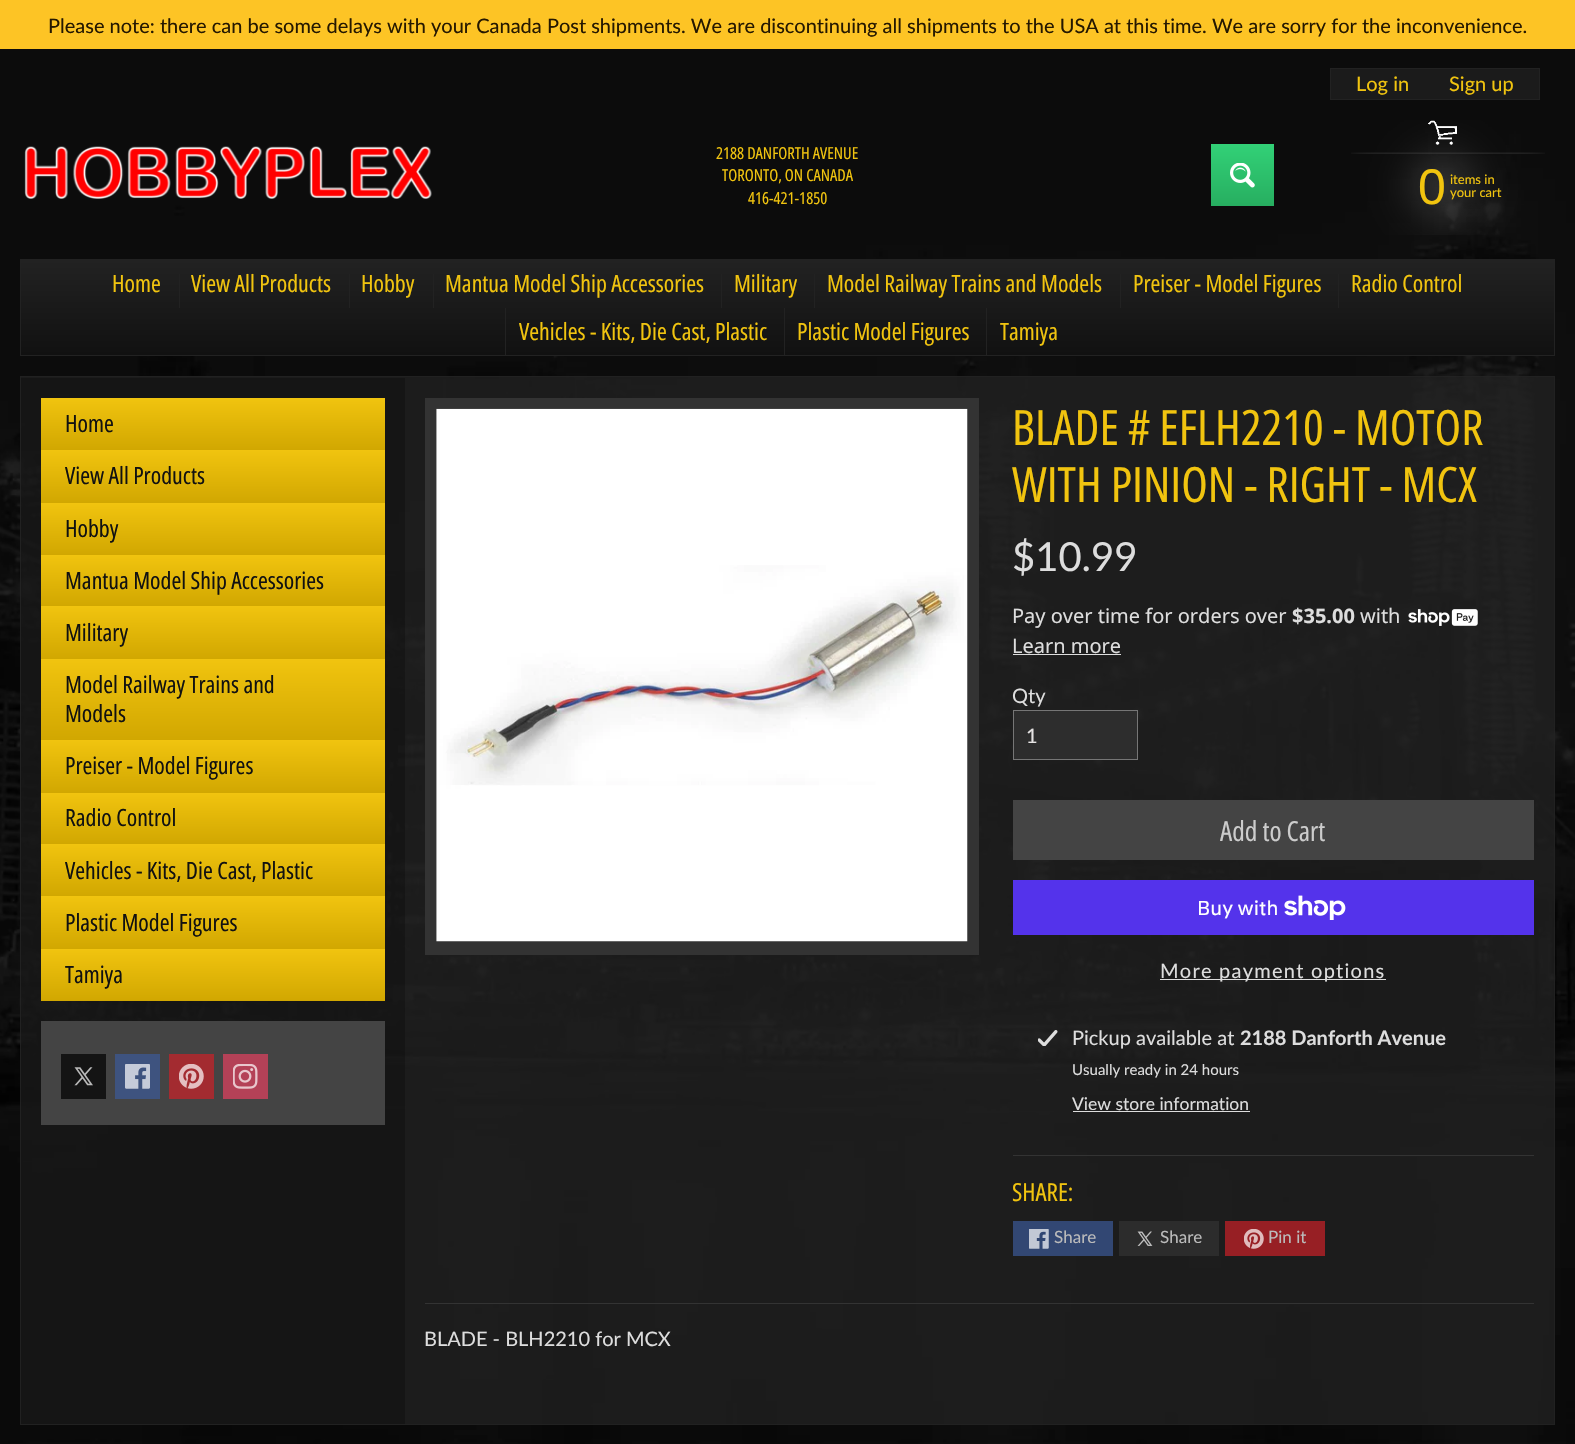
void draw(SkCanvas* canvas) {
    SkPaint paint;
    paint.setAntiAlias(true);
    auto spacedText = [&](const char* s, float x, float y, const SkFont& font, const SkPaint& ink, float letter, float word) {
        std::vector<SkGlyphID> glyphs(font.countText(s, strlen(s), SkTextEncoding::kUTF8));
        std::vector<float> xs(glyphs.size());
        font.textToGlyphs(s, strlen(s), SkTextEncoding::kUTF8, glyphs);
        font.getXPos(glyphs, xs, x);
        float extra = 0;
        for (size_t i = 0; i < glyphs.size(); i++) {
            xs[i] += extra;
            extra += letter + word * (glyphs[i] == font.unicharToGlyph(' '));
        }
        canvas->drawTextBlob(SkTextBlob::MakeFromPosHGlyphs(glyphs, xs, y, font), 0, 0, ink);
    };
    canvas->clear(0xFFFFFFFF);
    canvas->drawImageRect(SkImages::DeferredFromEncodedData(SkData::MakeFromFileName("img1.png")), SkRect::MakeXYWH(0, 49, 1575, 1395), SkSamplingOptions());
    paint.setColor(0xFFFDC425);
    canvas->drawRect(SkRect::MakeXYWH(0, 0, 1575, 49), paint);
    SkFont font1(fontMgr->matchFamilyStyle("Lato", SkFontStyle::Normal()), 20);
    font1.setSubpixel(true);
    paint.setColor(0xFF251800);
    canvas->drawString("Please note: there can be some delays with your Canada Post shipments. We are discontinuing all shipments to the USA at this time. We are sorry for the inconvenience.", 48, 33, font1, paint);
    canvas->drawImageRect(SkImages::DeferredFromEncodedData(SkData::MakeFromFileName("img2.png")), SkRect::MakeXYWH(24, 146, 408, 53), SkSamplingOptions());
    SkFont font2(fontMgr->matchFamilyStyle("Open Sans Condensed", SkFontStyle::Normal()), 16.5f);
    font2.setSubpixel(true);
    paint.setColor(0xFFF1C40F);
    canvas->drawString("2188 DANFORTH AVENUE", 716, 159, font2, paint);
    canvas->drawString("TORONTO, ON CANADA", 722, 181, font2, paint);
    canvas->drawString("416-421-1850", 748, 204, font2, paint);
    paint.setColor(0xFF1B1B1B);
    canvas->drawRect(SkRect::MakeXYWH(1330.5f, 68.5f, 209, 31), paint);
    paint.setStyle(SkPaint::kStroke_Style);
    paint.setStrokeWidth(1);
    paint.setColor(0xFF222222);
    canvas->drawRect(SkRect::MakeXYWH(1330.5f, 68.5f, 209, 31), paint);
    paint.setStyle(SkPaint::kFill_Style);
    paint.setColor(0xFFF1C40F);
    canvas->drawString("Log in", 1356, 91, font1, paint);
    canvas->drawString("Sign up", 1449, 91, font1, paint);
    {
        const SkColor colors[] = {0xFF32D177, 0xFF27AE60};
        const float stops[] = {0, 1};
        const SkPoint ends[] = {{1243, 144}, {1243, 206}};
        paint.setShader(SkGradientShader::MakeLinear(ends, colors, stops, 2, SkTileMode::kClamp));
        paint.setAlpha(255);
    }
    canvas->drawRect(SkRect::MakeXYWH(1211, 144, 63, 62), paint);
    canvas->drawImageRect(SkImages::DeferredFromEncodedData(SkData::MakeFromFileName("img3.png")), SkRect::MakeXYWH(1230, 163, 25, 25), SkSamplingOptions());
    canvas->drawImageRect(SkImages::DeferredFromEncodedData(SkData::MakeFromFileName("img4.png")), SkRect::MakeXYWH(1351, 120, 194, 115), SkSamplingOptions());
    SkFont font3(fontMgr->matchFamilyStyle("Liberation Sans", SkFontStyle::Normal()), 50);
    font3.setSubpixel(true);
    paint.setShader(nullptr);
    paint.setColor(0xFFF1C40F);
    canvas->drawString("0", 1418, 204, font3, paint);
    SkFont font4(fontMgr->matchFamilyStyle("Lato", SkFontStyle::Normal()), 13);
    font4.setSubpixel(true);
    canvas->drawString("items in", 1450, 184, font4, paint);
    canvas->drawString("your cart", 1450, 197, font4, paint);
    {
        const SkColor colors[] = {0xFF222222, 0xFF111111};
        const float stops[] = {0, 1};
        const SkPoint ends[] = {{788, 260}, {788, 355}};
        paint.setShader(SkGradientShader::MakeLinear(ends, colors, stops, 2, SkTileMode::kClamp));
        paint.setAlpha(255);
    }
    canvas->drawRect(SkRect::MakeXYWH(21, 260, 1533, 95), paint);
    paint.setStyle(SkPaint::kStroke_Style);
    paint.setShader(nullptr);
    paint.setColor(0xFF222222);
    canvas->drawRect(SkRect::MakeXYWH(20.5f, 259.5f, 1534, 96), paint);
    SkFont font5(fontMgr->matchFamilyStyle("Open Sans Condensed", SkFontStyle::Normal()), 23.75f);
    font5.setSubpixel(true);
    paint.setStyle(SkPaint::kFill_Style);
    paint.setColor(0xFFF1C40F);
    canvas->drawString("Home", 112, 292, font5, paint);
    paint.setColor(0xFF222222);
    canvas->drawRect(SkRect::MakeXYWH(179, 274, 1, 34), paint);
    paint.setColor(0xFFF1C40F);
    canvas->drawString("View All Products", 191, 292, font5, paint);
    paint.setColor(0xFF222222);
    canvas->drawRect(SkRect::MakeXYWH(349, 274, 1, 34), paint);
    paint.setColor(0xFFF1C40F);
    canvas->drawString("Hobby", 361, 292, font5, paint);
    paint.setColor(0xFF222222);
    canvas->drawRect(SkRect::MakeXYWH(433, 274, 1, 34), paint);
    paint.setColor(0xFFF1C40F);
    canvas->drawString("Mantua Model Ship Accessories", 445, 292, font5, paint);
    paint.setColor(0xFF222222);
    canvas->drawRect(SkRect::MakeXYWH(721, 274, 1, 34), paint);
    paint.setColor(0xFFF1C40F);
    canvas->drawString("Military", 734, 292, font5, paint);
    paint.setColor(0xFF222222);
    canvas->drawRect(SkRect::MakeXYWH(814, 274, 1, 34), paint);
    paint.setColor(0xFFF1C40F);
    canvas->drawString("Model Railway Trains and Models", 827, 292, font5, paint);
    paint.setColor(0xFF222222);
    canvas->drawRect(SkRect::MakeXYWH(1120, 274, 1, 34), paint);
    paint.setColor(0xFFF1C40F);
    canvas->drawString("Preiser - Model Figures", 1133, 292, font5, paint);
    paint.setColor(0xFF222222);
    canvas->drawRect(SkRect::MakeXYWH(1338, 274, 1, 34), paint);
    paint.setColor(0xFFF1C40F);
    canvas->drawString("Radio Control", 1351, 292, font5, paint);
    paint.setColor(0xFF222222);
    canvas->drawRect(SkRect::MakeXYWH(505, 308, 1, 47), paint);
    paint.setColor(0xFFF1C40F);
    canvas->drawString("Vehicles - Kits, Die Cast, Plastic", 519, 340, font5, paint);
    paint.setColor(0xFF222222);
    canvas->drawRect(SkRect::MakeXYWH(784, 308, 1, 47), paint);
    paint.setColor(0xFFF1C40F);
    canvas->drawString("Plastic Model Figures", 797, 340, font5, paint);
    paint.setColor(0xFF222222);
    canvas->drawRect(SkRect::MakeXYWH(986, 308, 1, 47), paint);
    paint.setColor(0xFFF1C40F);
    canvas->drawString("Tamiya", 1000, 340, font5, paint);
    paint.setColor(0xBF222222);
    canvas->drawRect(SkRect::MakeXYWH(20, 376, 1535, 1049), paint);
    paint.setStyle(SkPaint::kStroke_Style);
    paint.setColor(0xB3222222);
    canvas->drawRect(SkRect::MakeXYWH(20.5f, 376.5f, 1534, 1048), paint);
    paint.setStyle(SkPaint::kFill_Style);
    paint.setColor(0x40000000);
    canvas->drawRect(SkRect::MakeXYWH(21, 378, 384, 1046), paint);
    {
        const SkColor colors[] = {0xFFF1C40F, 0xFFD1A701};
        const float stops[] = {0, 1};
        const SkPoint ends[] = {{213, 398}, {213, 450}};
        paint.setShader(SkGradientShader::MakeLinear(ends, colors, stops, 2, SkTileMode::kClamp));
        paint.setAlpha(255);
    }
    canvas->drawRect(SkRect::MakeXYWH(41, 398, 344, 52), paint);
    paint.setShader(nullptr);
    paint.setColor(0xFF111111);
    canvas->drawString("Home", 65, 432, font5, paint);
    {
        const SkColor colors[] = {0xFFF1C40F, 0xFFD1A701};
        const float stops[] = {0, 1};
        const SkPoint ends[] = {{213, 450}, {213, 503}};
        paint.setShader(SkGradientShader::MakeLinear(ends, colors, stops, 2, SkTileMode::kClamp));
        paint.setAlpha(255);
    }
    canvas->drawRect(SkRect::MakeXYWH(41, 450, 344, 53), paint);
    paint.setShader(nullptr);
    paint.setColor(0xFF111111);
    canvas->drawString("View All Products", 65, 484, font5, paint);
    {
        const SkColor colors[] = {0xFFF1C40F, 0xFFD1A701};
        const float stops[] = {0, 1};
        const SkPoint ends[] = {{213, 503}, {213, 555}};
        paint.setShader(SkGradientShader::MakeLinear(ends, colors, stops, 2, SkTileMode::kClamp));
        paint.setAlpha(255);
    }
    canvas->drawRect(SkRect::MakeXYWH(41, 503, 344, 52), paint);
    paint.setShader(nullptr);
    paint.setColor(0xFF111111);
    canvas->drawString("Hobby", 65, 537, font5, paint);
    {
        const SkColor colors[] = {0xFFF1C40F, 0xFFD1A701};
        const float stops[] = {0, 1};
        const SkPoint ends[] = {{213, 555}, {213, 606}};
        paint.setShader(SkGradientShader::MakeLinear(ends, colors, stops, 2, SkTileMode::kClamp));
        paint.setAlpha(255);
    }
    canvas->drawRect(SkRect::MakeXYWH(41, 555, 344, 51), paint);
    paint.setShader(nullptr);
    paint.setColor(0xFF111111);
    canvas->drawString("Mantua Model Ship Accessories", 65, 589, font5, paint);
    {
        const SkColor colors[] = {0xFFF1C40F, 0xFFD1A701};
        const float stops[] = {0, 1};
        const SkPoint ends[] = {{213, 606}, {213, 659}};
        paint.setShader(SkGradientShader::MakeLinear(ends, colors, stops, 2, SkTileMode::kClamp));
        paint.setAlpha(255);
    }
    canvas->drawRect(SkRect::MakeXYWH(41, 606, 344, 53), paint);
    paint.setShader(nullptr);
    paint.setColor(0xFF111111);
    canvas->drawString("Military", 65, 641, font5, paint);
    {
        const SkColor colors[] = {0xFFF1C40F, 0xFFD1A701};
        const float stops[] = {0, 1};
        const SkPoint ends[] = {{213, 659}, {213, 740}};
        paint.setShader(SkGradientShader::MakeLinear(ends, colors, stops, 2, SkTileMode::kClamp));
        paint.setAlpha(255);
    }
    canvas->drawRect(SkRect::MakeXYWH(41, 659, 344, 81), paint);
    paint.setShader(nullptr);
    paint.setColor(0xFF111111);
    canvas->drawString("Model Railway Trains and", 65, 693, font5, paint);
    canvas->drawString("Models", 65, 722, font5, paint);
    {
        const SkColor colors[] = {0xFFF1C40F, 0xFFD1A701};
        const float stops[] = {0, 1};
        const SkPoint ends[] = {{213, 740}, {213, 793}};
        paint.setShader(SkGradientShader::MakeLinear(ends, colors, stops, 2, SkTileMode::kClamp));
        paint.setAlpha(255);
    }
    canvas->drawRect(SkRect::MakeXYWH(41, 740, 344, 53), paint);
    paint.setShader(nullptr);
    paint.setColor(0xFF111111);
    canvas->drawString("Preiser - Model Figures", 65, 774, font5, paint);
    {
        const SkColor colors[] = {0xFFF1C40F, 0xFFD1A701};
        const float stops[] = {0, 1};
        const SkPoint ends[] = {{213, 793}, {213, 844}};
        paint.setShader(SkGradientShader::MakeLinear(ends, colors, stops, 2, SkTileMode::kClamp));
        paint.setAlpha(255);
    }
    canvas->drawRect(SkRect::MakeXYWH(41, 793, 344, 51), paint);
    paint.setShader(nullptr);
    paint.setColor(0xFF111111);
    canvas->drawString("Radio Control", 65, 826, font5, paint);
    {
        const SkColor colors[] = {0xFFF1C40F, 0xFFD1A701};
        const float stops[] = {0, 1};
        const SkPoint ends[] = {{213, 844}, {213, 896}};
        paint.setShader(SkGradientShader::MakeLinear(ends, colors, stops, 2, SkTileMode::kClamp));
        paint.setAlpha(255);
    }
    canvas->drawRect(SkRect::MakeXYWH(41, 844, 344, 52), paint);
    paint.setShader(nullptr);
    paint.setColor(0xFF111111);
    canvas->drawString("Vehicles - Kits, Die Cast, Plastic", 65, 879, font5, paint);
    {
        const SkColor colors[] = {0xFFF1C40F, 0xFFD1A701};
        const float stops[] = {0, 1};
        const SkPoint ends[] = {{213, 896}, {213, 949}};
        paint.setShader(SkGradientShader::MakeLinear(ends, colors, stops, 2, SkTileMode::kClamp));
        paint.setAlpha(255);
    }
    canvas->drawRect(SkRect::MakeXYWH(41, 896, 344, 53), paint);
    paint.setShader(nullptr);
    paint.setColor(0xFF111111);
    canvas->drawString("Plastic Model Figures", 65, 931, font5, paint);
    {
        const SkColor colors[] = {0xFFF1C40F, 0xFFD1A701};
        const float stops[] = {0, 1};
        const SkPoint ends[] = {{213, 949}, {213, 1001}};
        paint.setShader(SkGradientShader::MakeLinear(ends, colors, stops, 2, SkTileMode::kClamp));
        paint.setAlpha(255);
    }
    canvas->drawRect(SkRect::MakeXYWH(41, 949, 344, 52), paint);
    paint.setShader(nullptr);
    paint.setColor(0xFF111111);
    canvas->drawString("Tamiya", 65, 983, font5, paint);
    paint.setColor(0xFF444444);
    canvas->drawRect(SkRect::MakeXYWH(41, 1021, 344, 104), paint);
    paint.setColor(0xFF141414);
    canvas->drawRect(SkRect::MakeXYWH(61, 1054, 45, 45), paint);
    canvas->drawImageRect(SkImages::DeferredFromEncodedData(SkData::MakeFromFileName("img5.png")), SkRect::MakeXYWH(74, 1067, 19, 19), SkSamplingOptions());
    paint.setColor(0xFF3E537F);
    canvas->drawRect(SkRect::MakeXYWH(115, 1054, 45, 45), paint);
    canvas->drawImageRect(SkImages::DeferredFromEncodedData(SkData::MakeFromFileName("img6.png")), SkRect::MakeXYWH(125, 1064, 25, 25), SkSamplingOptions());
    paint.setColor(0xFFA32B30);
    canvas->drawRect(SkRect::MakeXYWH(169, 1054, 45, 45), paint);
    canvas->drawImageRect(SkImages::DeferredFromEncodedData(SkData::MakeFromFileName("img7.png")), SkRect::MakeXYWH(179, 1064, 25, 25), SkSamplingOptions());
    paint.setColor(0xFFB44157);
    canvas->drawRect(SkRect::MakeXYWH(223, 1054, 45, 45), paint);
    canvas->drawImageRect(SkImages::DeferredFromEncodedData(SkData::MakeFromFileName("img8.png")), SkRect::MakeXYWH(233, 1064, 25, 25), SkSamplingOptions());
    paint.setColor(0xFF333333);
    canvas->drawRect(SkRect::MakeXYWH(425, 398, 554, 557), paint);
    canvas->drawImageRect(SkImages::DeferredFromEncodedData(SkData::MakeFromFileName("img9.png")), SkRect::MakeXYWH(436, 408, 532, 534), SkSamplingOptions());
    SkFont font6(fontMgr->matchFamilyStyle("Open Sans Condensed", SkFontStyle::Normal()), 48.75f);
    font6.setSubpixel(true);
    paint.setColor(0xFFF1C40F);
    canvas->drawString("BLADE # EFLH2210 - MOTOR", 1012, 445, font6, paint);
    canvas->drawString("WITH PINION - RIGHT - MCX", 1012, 502, font6, paint);
    SkFont font7(fontMgr->matchFamilyStyle("Lato", SkFontStyle::Normal()), 40);
    font7.setSubpixel(true);
    paint.setColor(0xFFDDDDDD);
    canvas->drawString("$10.99", 1012, 571, font7, paint);
    SkFont font8(fontMgr->matchFamilyStyle("Noto Sans", SkFontStyle::Normal()), 20);
    font8.setSubpixel(true);
    canvas->drawString("Pay over time for orders over", 1012, 623, font8, paint);
    SkFont font9(fontMgr->matchFamilyStyle("Noto Sans", SkFontStyle::Bold()), 20);
    font9.setSubpixel(true);
    canvas->drawString("$35.00", 1292, 623, font9, paint);
    canvas->drawString("with", 1360, 623, font8, paint);
    canvas->drawImageRect(SkImages::DeferredFromEncodedData(SkData::MakeFromFileName("img10.png")), SkRect::MakeXYWH(1408, 609, 70, 17), SkSamplingOptions());
    canvas->drawString("Learn more", 1012, 653, font8, paint);
    canvas->drawRect(SkRect::MakeXYWH(1013, 654, 108, 1), paint);
    canvas->drawString("Qty", 1012, 703, font1, paint);
    paint.setColor(0xFF2D2D2D);
    canvas->drawRect(SkRect::MakeXYWH(1013.5f, 710.5f, 124, 49), paint);
    paint.setStyle(SkPaint::kStroke_Style);
    paint.setColor(0xFF767676);
    canvas->drawRect(SkRect::MakeXYWH(1013.5f, 710.5f, 124, 49), paint);
    paint.setStyle(SkPaint::kFill_Style);
    paint.setColor(0xFFE5E3E3);
    canvas->drawString("1", 1026, 743, font1, paint);
    paint.setColor(0xFF444444);
    canvas->drawRect(SkRect::MakeXYWH(1013, 800, 521, 60), paint);
    SkFont font10(fontMgr->matchFamilyStyle("Open Sans Condensed", SkFontStyle::Normal()), 27.5f);
    font10.setSubpixel(true);
    paint.setColor(0xFFCCCCCC);
    canvas->drawString("Add to Cart", 1220, 841, font10, paint);
    paint.setColor(0xFF5433EB);
    canvas->drawRect(SkRect::MakeXYWH(1013, 880, 521, 55), paint);
    SkFont font11(fontMgr->matchFamilyStyle("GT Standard", SkFontStyle::Normal()), 20);
    font11.setSubpixel(true);
    paint.setColor(0xFFFFFFFF);
    canvas->drawString("Buy with", 1197, 915, font11, paint);
    canvas->drawImageRect(SkImages::DeferredFromEncodedData(SkData::MakeFromFileName("img11.png")), SkRect::MakeXYWH(1284, 895, 62, 25), SkSamplingOptions());
    paint.setColor(0xFFDDDDDD);
    canvas->drawRect(SkRect::MakeXYWH(1160, 979, 226, 1), paint);
    spacedText("More payment options", 1160, 978, font1, paint, 1.25f, 0);
    canvas->drawImageRect(SkImages::DeferredFromEncodedData(SkData::MakeFromFileName("img12.png")), SkRect::MakeXYWH(1038, 1030, 20, 16), SkSamplingOptions());
    canvas->drawString("Pickup available at", 1072, 1045, font1, paint);
    SkFont font12(fontMgr->matchFamilyStyle("Lato", SkFontStyle::Bold()), 20);
    font12.setSubpixel(true);
    canvas->drawString("2188 Danforth Avenue", 1240, 1045, font12, paint);
    SkFont font13(fontMgr->matchFamilyStyle("Lato", SkFontStyle::Normal()), 15);
    font13.setSubpixel(true);
    canvas->drawString("Usually ready in 24 hours", 1072, 1075, font13, paint);
    SkFont font14(fontMgr->matchFamilyStyle("Lato", SkFontStyle::Normal()), 17.5f);
    font14.setSubpixel(true);
    canvas->drawString("View store information", 1072, 1110, font14, paint);
    canvas->drawRect(SkRect::MakeXYWH(1073, 1111, 177, 1), paint);
    paint.setColor(0xFF333333);
    canvas->drawRect(SkRect::MakeXYWH(1013, 1155, 521, 1), paint);
    SkFont font15(fontMgr->matchFamilyStyle("Open Sans Condensed", SkFontStyle::Normal()), 25);
    font15.setSubpixel(true);
    paint.setColor(0xFFF1C40F);
    canvas->drawString("SHARE:", 1012, 1201, font15, paint);
    paint.setColor(0xFF324773);
    canvas->drawRect(SkRect::MakeXYWH(1013, 1221, 100, 35), paint);
    canvas->drawImageRect(SkImages::DeferredFromEncodedData(SkData::MakeFromFileName("img13.png")), SkRect::MakeXYWH(1029, 1229, 20, 20), SkSamplingOptions());
    SkFont font16(fontMgr->matchFamilyStyle("Lato", SkFontStyle::Normal()), 17);
    font16.setSubpixel(true);
    paint.setColor(0xFFBBBBBB);
    canvas->drawString("Share", 1054, 1243, font16, paint);
    paint.setColor(0xFF2C2C2C);
    canvas->drawRect(SkRect::MakeXYWH(1119, 1221, 100, 35), paint);
    canvas->drawImageRect(SkImages::DeferredFromEncodedData(SkData::MakeFromFileName("img14.png")), SkRect::MakeXYWH(1137, 1231, 16, 15), SkSamplingOptions());
    paint.setColor(0xFFBBBBBB);
    canvas->drawString("Share", 1160, 1243, font16, paint);
    paint.setColor(0xFF971F24);
    canvas->drawRect(SkRect::MakeXYWH(1225, 1221, 100, 35), paint);
    canvas->drawImageRect(SkImages::DeferredFromEncodedData(SkData::MakeFromFileName("img15.png")), SkRect::MakeXYWH(1244, 1229, 20, 20), SkSamplingOptions());
    paint.setColor(0xFFBBBBBB);
    canvas->drawString("Pin it", 1268, 1243, font16, paint);
    paint.setColor(0xFF333333);
    canvas->drawRect(SkRect::MakeXYWH(425, 1303, 1109, 1), paint);
    paint.setColor(0xFFDDDDDD);
    canvas->drawString("BLADE - BLH2210 for MCX", 424, 1346, font1, paint);
}
